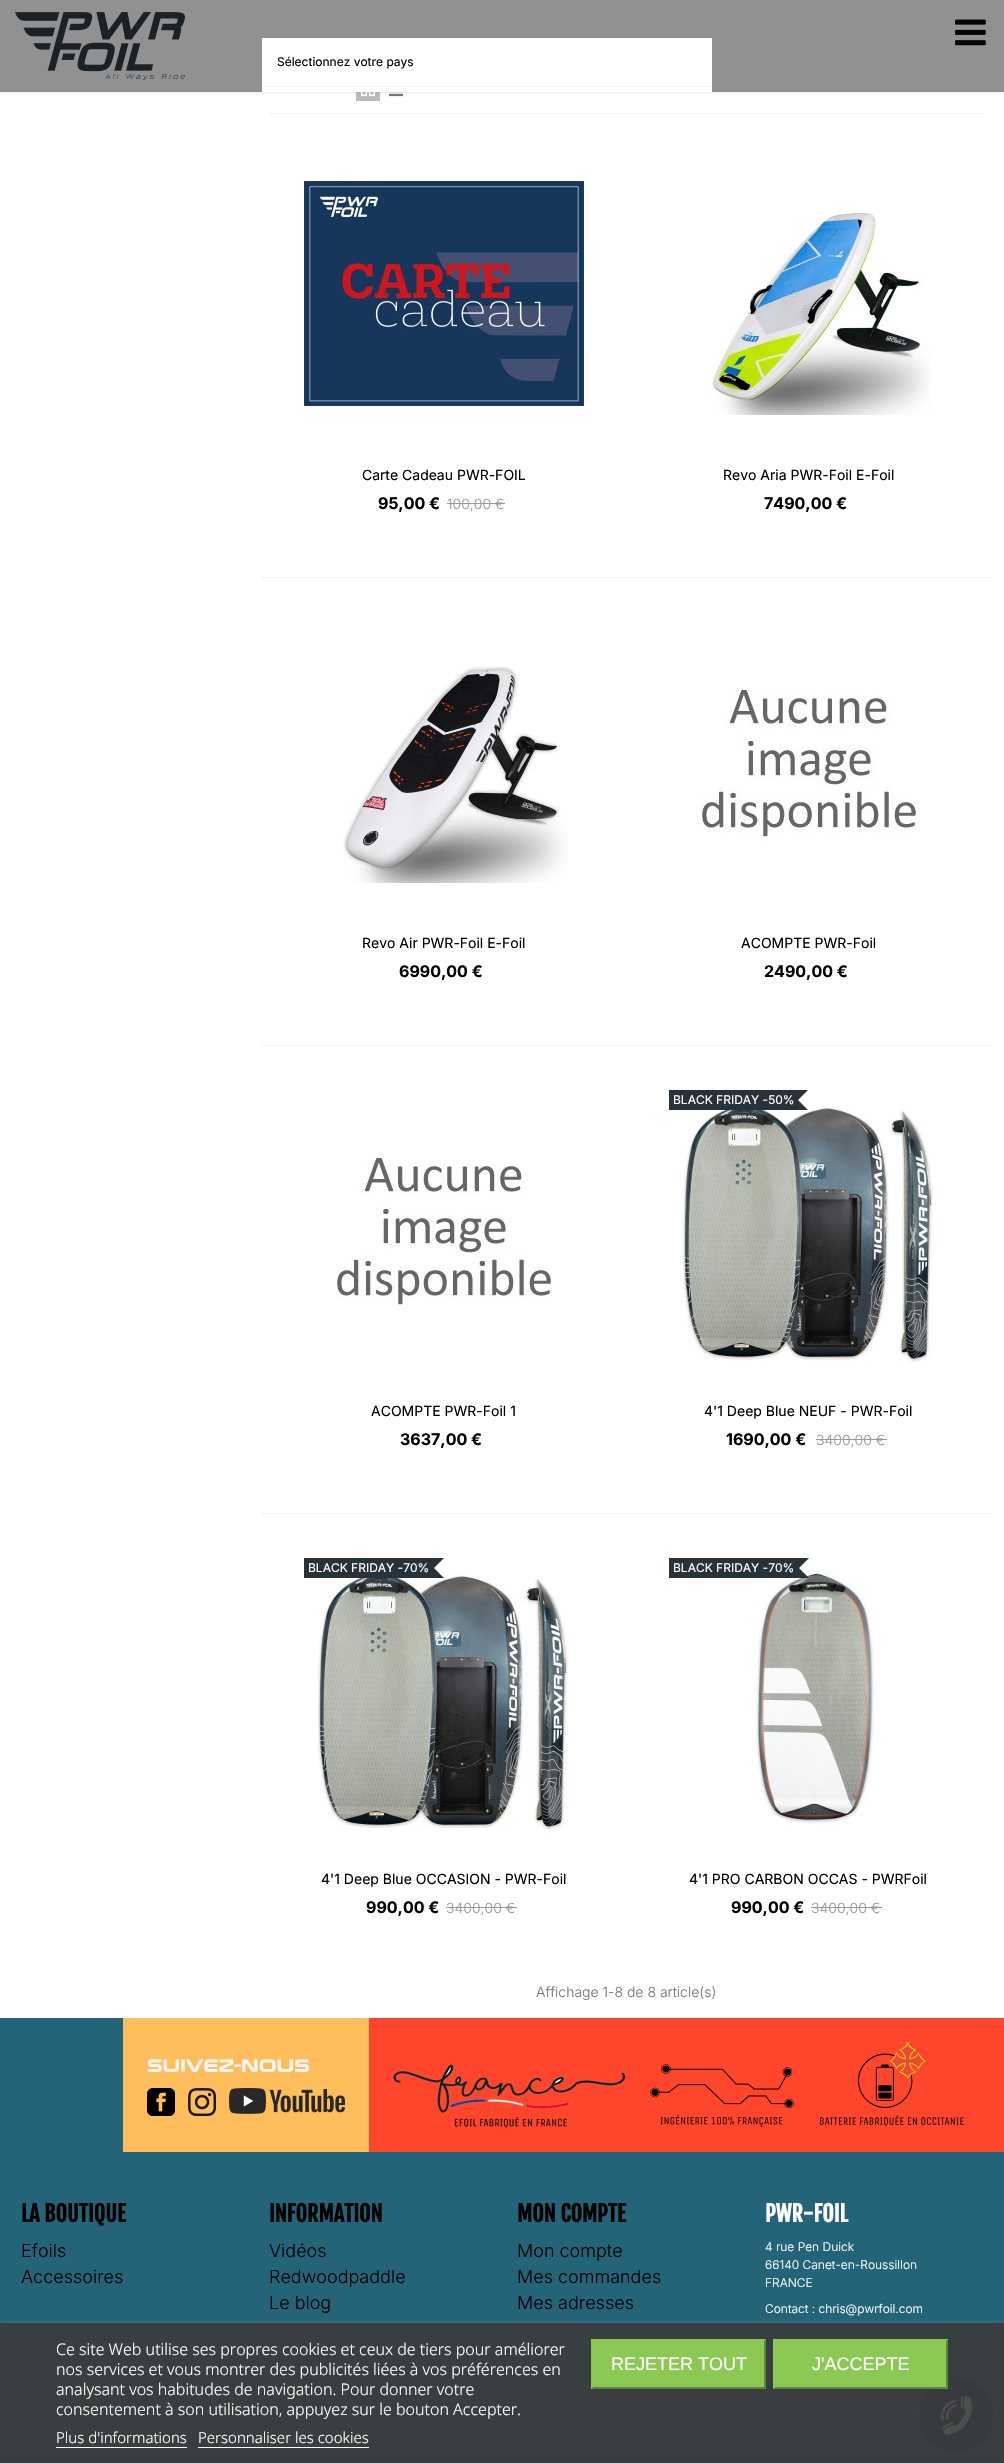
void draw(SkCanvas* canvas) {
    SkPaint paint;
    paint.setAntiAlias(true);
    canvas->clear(0xFFFFFFFF);
    paint.setColor(0xFFBBBBBB);
    canvas->drawRect(SkRect::MakeXYWH(356, 92, 24, 9), paint);
    canvas->drawImageRect(SkImages::DeferredFromEncodedData(SkData::MakeFromFileName("img3.png")), SkRect::MakeXYWH(361, 92, 14, 5), SkSamplingOptions());
    canvas->drawImageRect(SkImages::DeferredFromEncodedData(SkData::MakeFromFileName("img4.png")), SkRect::MakeXYWH(389, 92, 14, 5), SkSamplingOptions());
    paint.setColor(0x1A333333);
    paint.setMaskFilter(SkMaskFilter::MakeBlur(kNormal_SkBlurStyle, 2));
    canvas->drawRect(SkRect::MakeXYWH(0, 1, 1004, 92), paint);
    paint.setMaskFilter(nullptr);
    paint.setColor(0xFFFFFFFF);
    canvas->drawRect(SkRect::MakeXYWH(0, 0, 1004, 92), paint);
    canvas->drawImageRect(SkImages::DeferredFromEncodedData(SkData::MakeFromFileName("img1.png")), SkRect::MakeXYWH(15, 12, 170, 68), SkSamplingOptions());
    canvas->drawImageRect(SkImages::DeferredFromEncodedData(SkData::MakeFromFileName("img2.png")), SkRect::MakeXYWH(955, 19, 31, 27), SkSamplingOptions());
    paint.setColor(0x730A0A0A);
    canvas->drawRect(SkRect::MakeXYWH(0, 0, 1004, 92), paint);
    paint.setColor(0xFFFFFFFF);
    canvas->drawRect(SkRect::MakeXYWH(262, 38, 450, 54), paint);
    paint.setColor(0xFFF6F6F6);
    canvas->drawRect(SkRect::MakeXYWH(262, 86, 450, 1), paint);
    SkFont font1(fontMgr->matchFamilyStyle("Inter", SkFontStyle::Normal()), 12);
    font1.setSubpixel(true);
    paint.setColor(0xFF000000);
    canvas->drawString("Sélectionnez votre pays", 277, 66, font1, paint);
    paint.setColor(0xFFF2F2F2);
    canvas->drawRect(SkRect::MakeXYWH(269, 113, 714, 1), paint);
    canvas->drawImageRect(SkImages::DeferredFromEncodedData(SkData::MakeFromFileName("img5.png")), SkRect::MakeXYWH(304, 176, 280, 231), SkSamplingOptions());
    SkFont font2(fontMgr->matchFamilyStyle("Inter", SkFontStyle::Normal()), 14);
    font2.setSubpixel(true);
    paint.setColor(0xFF000000);
    canvas->drawString("Carte Cadeau PWR-FOIL", 362, 480, font2, paint);
    SkFont font3(fontMgr->matchFamilyStyle("Inter", SkFontStyle::Bold()), 16);
    font3.setSubpixel(true);
    canvas->drawString("95,00 €", 378, 509, font3, paint);
    SkFont font4(fontMgr->matchFamilyStyle("Inter", SkFontStyle(300, SkFontStyle::kNormal_Width, SkFontStyle::kUpright_Slant)), 14);
    font4.setSubpixel(true);
    paint.setColor(0xFF999999);
    canvas->drawString("100,00 €", 447, 509, font4, paint);
    canvas->drawRect(SkRect::MakeXYWH(447, 503, 58, 1), paint);
    canvas->drawImageRect(SkImages::DeferredFromEncodedData(SkData::MakeFromFileName("img6.png")), SkRect::MakeXYWH(711, 212, 220, 203), SkSamplingOptions());
    paint.setColor(0xFF000000);
    canvas->drawString("Revo Aria PWR-Foil E-Foil", 723, 480, font2, paint);
    canvas->drawString("7 490,00 €", 764, 509, font3, paint);
    paint.setColor(0xFFF2F2F2);
    canvas->drawRect(SkRect::MakeXYWH(261, 577, 730, 1), paint);
    canvas->drawImageRect(SkImages::DeferredFromEncodedData(SkData::MakeFromFileName("img7.png")), SkRect::MakeXYWH(343, 666, 225, 217), SkSamplingOptions());
    paint.setColor(0xFF000000);
    canvas->drawString("Revo Air PWR-Foil E-Foil", 362, 948, font2, paint);
    canvas->drawString("6 990,00 €", 399, 977, font3, paint);
    canvas->drawImageRect(SkImages::DeferredFromEncodedData(SkData::MakeFromFileName("img8.png")), SkRect::MakeXYWH(701, 690, 216, 152), SkSamplingOptions());
    canvas->drawString("ACOMPTE PWR-Foil", 741, 948, font2, paint);
    canvas->drawString("2 490,00 €", 764, 977, font3, paint);
    paint.setColor(0xFFF2F2F2);
    canvas->drawRect(SkRect::MakeXYWH(261, 1045, 730, 1), paint);
    canvas->drawImageRect(SkImages::DeferredFromEncodedData(SkData::MakeFromFileName("img8.png")), SkRect::MakeXYWH(336, 1158, 216, 152), SkSamplingOptions());
    paint.setColor(0xFF000000);
    canvas->drawString("ACOMPTE PWR-Foil 1", 371, 1416, font2, paint);
    canvas->drawString("3 637,00 €", 400, 1445, font3, paint);
    canvas->drawImageRect(SkImages::DeferredFromEncodedData(SkData::MakeFromFileName("img9.png")), SkRect::MakeXYWH(682, 1102, 251, 263), SkSamplingOptions());
    paint.setColor(0xFF28323B);
    canvas->drawRect(SkRect::MakeXYWH(669, 1090, 129, 20), paint);
    paint.setColor(0xFFFFFFFF);
    canvas->drawString("BLACK FRIDAY -50%", 673, 1104, font1, paint);
    paint.setColor(0xFF28323B);
    canvas->drawPath(SkPathBuilder().moveTo(798, 1090).lineTo(808, 1090).lineTo(798, 1100).close().moveTo(808, 1110).lineTo(798, 1110).lineTo(798, 1100).close().detach(), paint);
    paint.setColor(0xFF000000);
    canvas->drawString("4'1 Deep Blue NEUF - PWR-Foil", 704, 1416, font2, paint);
    canvas->drawString("1 690,00 €", 726, 1445, font3, paint);
    paint.setColor(0xFF999999);
    canvas->drawString("3 400,00 €", 816, 1445, font4, paint);
    canvas->drawRect(SkRect::MakeXYWH(816, 1439, 71, 1), paint);
    paint.setColor(0xFFF2F2F2);
    canvas->drawRect(SkRect::MakeXYWH(261, 1513, 730, 1), paint);
    canvas->drawImageRect(SkImages::DeferredFromEncodedData(SkData::MakeFromFileName("img9.png")), SkRect::MakeXYWH(317, 1570, 251, 263), SkSamplingOptions());
    paint.setColor(0xFF28323B);
    canvas->drawRect(SkRect::MakeXYWH(304, 1558, 130, 20), paint);
    paint.setColor(0xFFFFFFFF);
    canvas->drawString("BLACK FRIDAY -70 %", 308, 1572, font1, paint);
    paint.setColor(0xFF28323B);
    canvas->drawPath(SkPathBuilder().moveTo(434, 1558).lineTo(444, 1558).lineTo(434, 1568).close().moveTo(444, 1578).lineTo(434, 1578).lineTo(434, 1568).close().detach(), paint);
    paint.setColor(0xFF000000);
    canvas->drawString("4'1 Deep Blue OCCASION - PWR-Foil", 321, 1884, font2, paint);
    canvas->drawString("990,00 €", 366, 1913, font3, paint);
    paint.setColor(0xFF999999);
    canvas->drawString("3 400,00 €", 446, 1913, font4, paint);
    canvas->drawRect(SkRect::MakeXYWH(446, 1907, 71, 1), paint);
    canvas->drawImageRect(SkImages::DeferredFromEncodedData(SkData::MakeFromFileName("img10.png")), SkRect::MakeXYWH(752, 1570, 125, 256), SkSamplingOptions());
    paint.setColor(0xFF28323B);
    canvas->drawRect(SkRect::MakeXYWH(669, 1558, 130, 20), paint);
    paint.setColor(0xFFFFFFFF);
    canvas->drawString("BLACK FRIDAY -70 %", 673, 1572, font1, paint);
    paint.setColor(0xFF28323B);
    canvas->drawPath(SkPathBuilder().moveTo(799, 1558).lineTo(809, 1558).lineTo(799, 1568).close().moveTo(809, 1578).lineTo(799, 1578).lineTo(799, 1568).close().detach(), paint);
    paint.setColor(0xFF000000);
    canvas->drawString("4'1 PRO CARBON OCCAS - PWRFoil", 689, 1884, font2, paint);
    canvas->drawString("990,00 €", 731, 1913, font3, paint);
    paint.setColor(0xFF999999);
    canvas->drawString("3 400,00 €", 811, 1913, font4, paint);
    canvas->drawRect(SkRect::MakeXYWH(811, 1907, 71, 1), paint);
    paint.setColor(0xFF777777);
    canvas->drawString("Affichage 1-8 de 8 article(s)", 536, 1997, font4, paint);
    paint.setColor(0xFF246478);
    canvas->drawRect(SkRect::MakeXYWH(0, 2018, 1004, 445), paint);
    paint.setColor(0xFFFF462D);
    canvas->drawRect(SkRect::MakeXYWH(369, 2018, 635, 134), paint);
    paint.setColor(0xFFFFBD5B);
    canvas->drawRect(SkRect::MakeXYWH(123, 2018, 246, 134), paint);
    SkFont font5(fontMgr->matchFamilyStyle("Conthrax", SkFontStyle::Bold()), 18);
    font5.setSubpixel(true);
    paint.setColor(0xFFF5F5F5);
    canvas->drawString("SUIVEZ-NOUS", 147, 2072, font5, paint);
    canvas->drawImageRect(SkImages::DeferredFromEncodedData(SkData::MakeFromFileName("img11.png")), SkRect::MakeXYWH(147, 2088, 28, 28), SkSamplingOptions());
    canvas->drawImageRect(SkImages::DeferredFromEncodedData(SkData::MakeFromFileName("img12.png")), SkRect::MakeXYWH(188, 2088, 28, 28), SkSamplingOptions());
    canvas->drawImageRect(SkImages::DeferredFromEncodedData(SkData::MakeFromFileName("img13.png")), SkRect::MakeXYWH(229, 2088, 116, 26), SkSamplingOptions());
    canvas->drawImageRect(SkImages::DeferredFromEncodedData(SkData::MakeFromFileName("img14.png")), SkRect::MakeXYWH(393, 2064, 233, 64), SkSamplingOptions());
    canvas->drawImageRect(SkImages::DeferredFromEncodedData(SkData::MakeFromFileName("img15.png")), SkRect::MakeXYWH(650, 2064, 144, 63), SkSamplingOptions());
    canvas->drawImageRect(SkImages::DeferredFromEncodedData(SkData::MakeFromFileName("img16.png")), SkRect::MakeXYWH(820, 2042, 144, 85), SkSamplingOptions());
    SkFont font6(fontMgr->matchFamilyStyle("Fjalla One", SkFontStyle::Bold()), 22);
    font6.setSubpixel(true);
    paint.setColor(0xFF000000);
    canvas->drawString("LA BOUTIQUE", 21, 2222, font6, paint);
    SkFont font7(fontMgr->matchFamilyStyle("Inter", SkFontStyle(300, SkFontStyle::kNormal_Width, SkFontStyle::kUpright_Slant)), 18);
    font7.setSubpixel(true);
    canvas->drawString("Efoils", 21, 2257, font7, paint);
    canvas->drawString("Accessoires", 21, 2283, font7, paint);
    canvas->drawString("INFORMATION", 269, 2222, font6, paint);
    canvas->drawString("Vidéos", 269, 2257, font7, paint);
    canvas->drawString("Redwoodpaddle", 269, 2283, font7, paint);
    canvas->drawString("Le blog", 269, 2309, font7, paint);
    canvas->drawString("MON COMPTE", 517, 2222, font6, paint);
    canvas->drawString("Mon compte", 517, 2257, font7, paint);
    canvas->drawString("Mes commandes", 517, 2283, font7, paint);
    canvas->drawString("Mes adresses", 517, 2309, font7, paint);
    paint.setColor(0xFFFFFFFF);
    canvas->drawString("PWR-FOIL", 765, 2222, font6, paint);
    SkFont font8(fontMgr->matchFamilyStyle("Inter", SkFontStyle(300, SkFontStyle::kNormal_Width, SkFontStyle::kUpright_Slant)), 12);
    font8.setSubpixel(true);
    canvas->drawString("4 rue Pen Duick", 765, 2251, font8, paint);
    canvas->drawString("66140 Canet-en-Roussillon", 765, 2269, font8, paint);
    canvas->drawString("FRANCE", 765, 2287, font8, paint);
    canvas->drawString("Contact : chris@pwrfoil.com", 765, 2313, font8, paint);
    paint.setColor(0xFF163C48);
    canvas->drawCircle(956.5f, 2415.5f, 37.5f, paint);
    canvas->drawImageRect(SkImages::DeferredFromEncodedData(SkData::MakeFromFileName("img17.png")), SkRect::MakeXYWH(940, 2395, 33, 41), SkSamplingOptions());
    canvas->save();
    canvas->clipRect(SkRect::MakeXYWH(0, 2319, 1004, 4));
    paint.setColor(0xFF707070);
    paint.setMaskFilter(SkMaskFilter::MakeBlur(kNormal_SkBlurStyle, 2.5f));
    canvas->drawRect(SkRect::MakeXYWH(0, 2324, 1004, 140), paint);
    paint.setMaskFilter(nullptr);
    canvas->restore();
    paint.setColor(0xE63B3B3B);
    canvas->drawRect(SkRect::MakeXYWH(0, 2323, 1004, 140), paint);
    SkFont font9(fontMgr->matchFamilyStyle("Noto Sans", SkFontStyle(300, SkFontStyle::kNormal_Width, SkFontStyle::kUpright_Slant)), 16);
    font9.setSubpixel(true);
    paint.setColor(0xFFFFFFFF);
    canvas->drawString("Ce site Web utilise ses propres cookies et ceux de tiers pour améliorer", 56, 2355, font9, paint);
    canvas->drawString("nos services et vous montrer des publicités liées à vos préférences en", 56, 2375, font9, paint);
    canvas->drawString("analysant vos habitudes de navigation. Pour donner votre", 56, 2395, font9, paint);
    canvas->drawString("consentement à son utilisation, appuyez sur le bouton Accepter.", 56, 2415, font9, paint);
    SkFont font10(fontMgr->matchFamilyStyle("Noto Sans", SkFontStyle(300, SkFontStyle::kNormal_Width, SkFontStyle::kUpright_Slant)), 15);
    font10.setSubpixel(true);
    canvas->drawString("Plus d'informations", 56, 2443, font10, paint);
    canvas->drawRect(SkRect::MakeXYWH(56, 2447, 131, 1), paint);
    canvas->drawString("Personnaliser les cookies", 198, 2443, font10, paint);
    canvas->drawRect(SkRect::MakeXYWH(198, 2447, 171, 1), paint);
    paint.setColor(0xFF8BC954);
    canvas->drawRect(SkRect::MakeXYWH(591, 2339, 175, 50), paint);
    paint.setColor(0xFF5D8638);
    canvas->drawPath(SkPathBuilder().moveTo(766, 2339).lineTo(766, 2389).lineTo(764, 2387).lineTo(764, 2341).close().detach(), paint);
    canvas->drawPath(SkPathBuilder().moveTo(766, 2389).lineTo(591, 2389).lineTo(593, 2387).lineTo(764, 2387).close().detach(), paint);
    paint.setColor(0xFF8BC954);
    canvas->drawPath(SkPathBuilder().moveTo(591, 2389).lineTo(591, 2339).lineTo(593, 2341).lineTo(593, 2387).close().detach(), paint);
    SkFont font11(fontMgr->matchFamilyStyle("Liberation Sans", SkFontStyle::Normal()), 18);
    font11.setSubpixel(true);
    paint.setColor(0xFFFFFFFF);
    canvas->drawString("REJETER TOUT", 611, 2370, font11, paint);
    paint.setColor(0xFF8BC954);
    canvas->drawRect(SkRect::MakeXYWH(773, 2339, 175, 50), paint);
    paint.setColor(0xFF5D8638);
    canvas->drawPath(SkPathBuilder().moveTo(948, 2339).lineTo(948, 2389).lineTo(946, 2387).lineTo(946, 2341).close().detach(), paint);
    canvas->drawPath(SkPathBuilder().moveTo(948, 2389).lineTo(773, 2389).lineTo(775, 2387).lineTo(946, 2387).close().detach(), paint);
    paint.setColor(0xFF8BC954);
    canvas->drawPath(SkPathBuilder().moveTo(773, 2389).lineTo(773, 2339).lineTo(775, 2341).lineTo(775, 2387).close().detach(), paint);
    paint.setColor(0xFFFFFFFF);
    canvas->drawString("J'ACCEPTE", 812, 2370, font11, paint);
}
